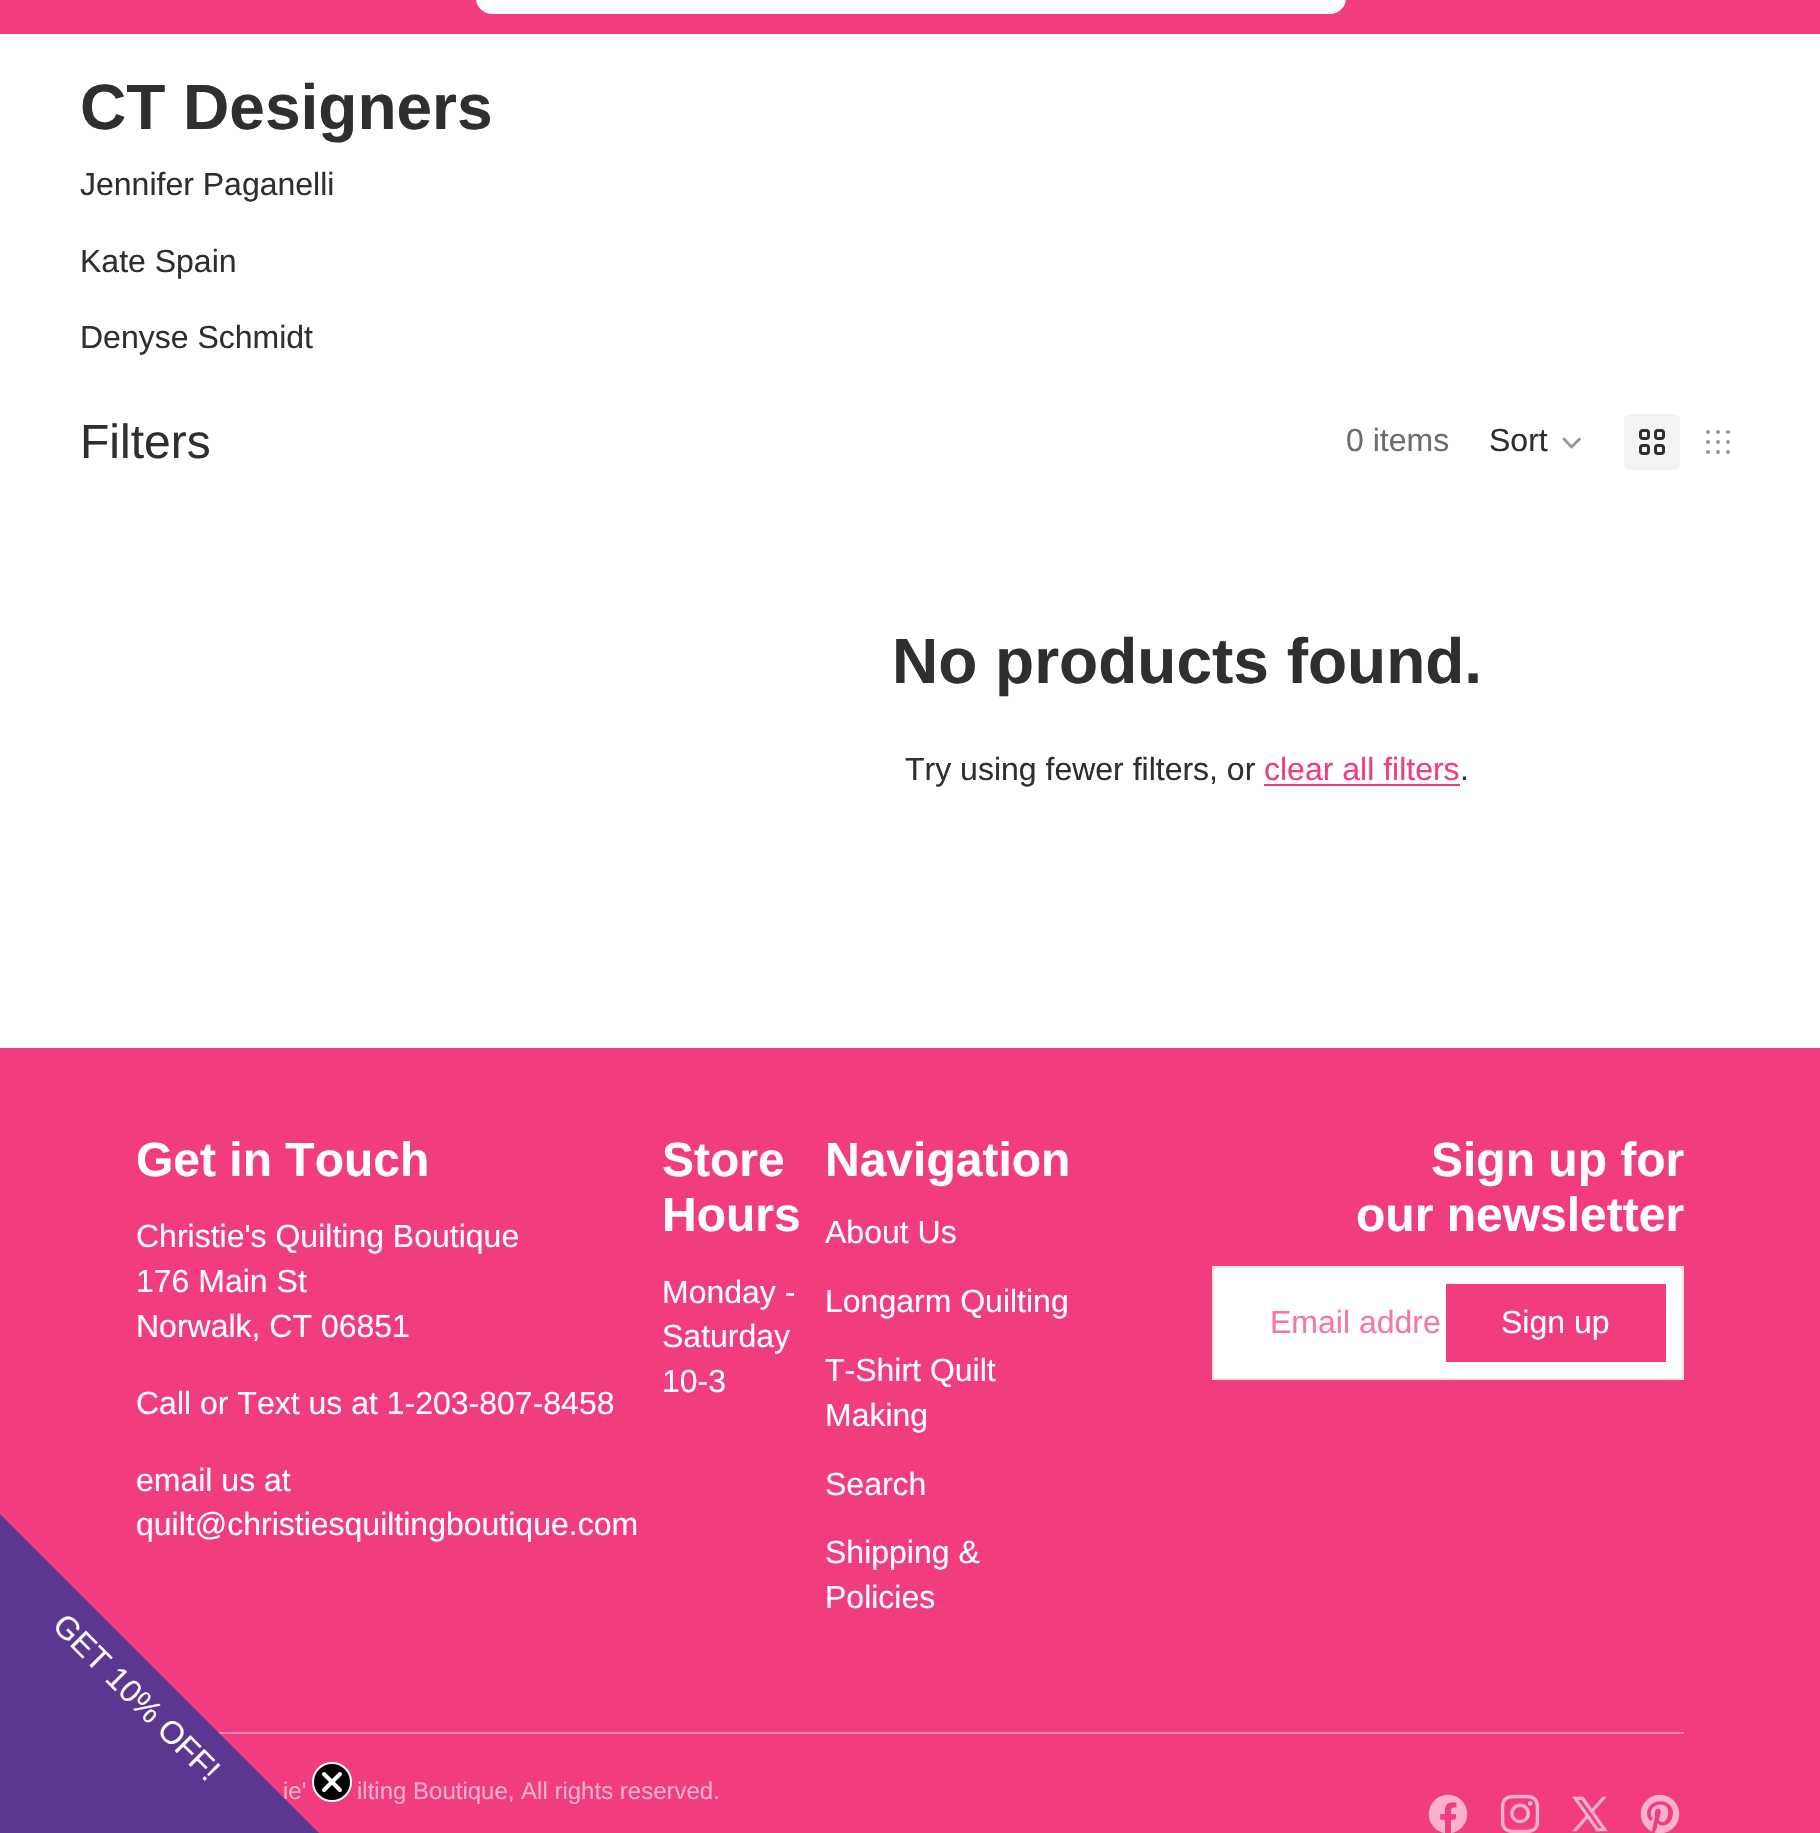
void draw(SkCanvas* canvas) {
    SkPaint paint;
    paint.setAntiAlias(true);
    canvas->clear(0xFFFFFFFF);
    paint.setColor(0xFFF23C80);
    canvas->drawRect(SkRect::MakeXYWH(0, 0, 1820, 34), paint);
    paint.setColor(0xFFFFFFFF);
    canvas->drawRoundRect(SkRect::MakeXYWH(477, -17, 868, 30), 15, 15, paint);
    paint.setStyle(SkPaint::kStroke_Style);
    paint.setStrokeWidth(2);
    canvas->drawRoundRect(SkRect::MakeXYWH(477, -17, 868, 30), 15, 15, paint);
    SkFont font1(fontMgr->matchFamilyStyle("Arimo", SkFontStyle::Bold()), 64);
    font1.setSubpixel(true);
    paint.setStyle(SkPaint::kFill_Style);
    paint.setColor(0xFF2F2F2F);
    canvas->drawString("CT Designers", 80, 129, font1, paint);
    SkFont font2(fontMgr->matchFamilyStyle("Arimo", SkFontStyle::Normal()), 32);
    font2.setSubpixel(true);
    canvas->drawString("Jennifer Paganelli", 80, 195, font2, paint);
    canvas->drawString("Kate Spain", 80, 272, font2, paint);
    canvas->drawString("Denyse Schmidt", 80, 348, font2, paint);
    SkFont font3(fontMgr->matchFamilyStyle("Arimo", SkFontStyle::Normal()), 48);
    font3.setSubpixel(true);
    canvas->drawString("Filters", 80, 458, font3, paint);
    paint.setColor(0xFF6D6D6D);
    canvas->drawString("0 items", 1346, 451, font2, paint);
    paint.setColor(0xFF2F2F2F);
    canvas->drawString("Sort", 1489, 451, font2, paint);
    paint.setStyle(SkPaint::kStroke_Style);
    paint.setStrokeWidth(2.9f);
    paint.setStrokeCap(SkPaint::kRound_Cap);
    paint.setStrokeJoin(SkPaint::kRound_Join);
    paint.setColor(0xFF979797);
    canvas->drawPath(SkPathBuilder().moveTo(1579.5f, 439).lineTo(1571.5f, 447).lineTo(1564, 439).detach(), paint);
    paint.setStyle(SkPaint::kFill_Style);
    paint.setColor(0xFFF3F3F3);
    canvas->drawRoundRect(SkRect::MakeXYWH(1624, 414, 56, 56), 6, 6, paint);
    canvas->drawImageRect(SkImages::DeferredFromEncodedData(SkData::MakeFromFileName("img1.png")), SkRect::MakeXYWH(1639, 429, 26, 26), SkSamplingOptions());
    canvas->drawImageRect(SkImages::DeferredFromEncodedData(SkData::MakeFromFileName("img2.png")), SkRect::MakeXYWH(1706, 430, 24, 24), SkSamplingOptions());
    paint.setColor(0xFF2F2F2F);
    canvas->drawString("No products found.", 892, 683, font1, paint);
    canvas->drawString("Try using fewer filters, or", 905, 780, font2, paint);
    paint.setColor(0xFFF23C80);
    canvas->drawString("clear all filters", 1264, 780, font2, paint);
    canvas->drawRect(SkRect::MakeXYWH(1264, 784, 196, 2), paint);
    paint.setColor(0xFF2F2F2F);
    canvas->drawString(".", 1460, 780, font2, paint);
    paint.setColor(0xFFF23C80);
    canvas->drawRect(SkRect::MakeXYWH(0, 1048, 1820, 785), paint);
    SkFont font4(fontMgr->matchFamilyStyle("Arimo", SkFontStyle::Bold()), 48);
    font4.setSubpixel(true);
    paint.setColor(0xFFFFFFFF);
    canvas->drawString("Get in Touch", 136, 1176, font4, paint);
    canvas->drawString("Christie's Quilting Boutique", 136, 1247, font2, paint);
    canvas->drawString("176 Main St", 136, 1292, font2, paint);
    canvas->drawString("Norwalk, CT 06851", 136, 1337, font2, paint);
    canvas->drawString("Call or Text us at 1-203-807-8458", 136, 1414, font2, paint);
    canvas->drawString("email us at", 136, 1491, font2, paint);
    canvas->drawString("quilt@christiesquiltingboutique.com", 136, 1535, font2, paint);
    canvas->drawString("Store", 662, 1176, font4, paint);
    canvas->drawString("Hours", 662, 1231, font4, paint);
    canvas->drawString("Monday -", 662, 1303, font2, paint);
    canvas->drawString("Saturday", 662, 1347, font2, paint);
    canvas->drawString("10-3", 662, 1392, font2, paint);
    canvas->drawString("Navigation", 825, 1176, font4, paint);
    canvas->drawString("About Us", 825, 1243, font2, paint);
    canvas->drawString("Longarm Quilting", 825, 1312, font2, paint);
    canvas->drawString("T-Shirt Quilt", 825, 1381, font2, paint);
    canvas->drawString("Making", 825, 1426, font2, paint);
    canvas->drawString("Search", 825, 1495, font2, paint);
    canvas->drawString("Shipping &", 825, 1563, font2, paint);
    canvas->drawString("Policies", 825, 1608, font2, paint);
    canvas->drawString("Sign up for", 1431, 1176, font4, paint);
    canvas->drawString("our newsletter", 1356, 1231, font4, paint);
    canvas->drawRect(SkRect::MakeXYWH(1213, 1267, 470, 112), paint);
    paint.setStyle(SkPaint::kStroke_Style);
    paint.setStrokeWidth(2);
    paint.setStrokeCap(SkPaint::kButt_Cap);
    paint.setStrokeJoin(SkPaint::kMiter_Join);
    paint.setColor(0xFFEFE4E2);
    canvas->drawRect(SkRect::MakeXYWH(1213, 1267, 470, 112), paint);
    paint.setStyle(SkPaint::kFill_Style);
    paint.setColor(0xFFF677A6);
    canvas->drawString("Email addre", 1270, 1333, font2, paint);
    paint.setColor(0xFFF23C80);
    canvas->drawRect(SkRect::MakeXYWH(1446, 1284, 220, 78), paint);
    paint.setColor(0xFFFFFFFF);
    canvas->drawString("Sign up", 1501, 1333, font2, paint);
    paint.setColor(0xFFF786B0);
    canvas->drawRect(SkRect::MakeXYWH(218, 1732, 1466, 2), paint);
    SkFont font5(fontMgr->matchFamilyStyle("Arimo", SkFontStyle::Normal()), 24);
    font5.setSubpixel(true);
    paint.setColor(0xFFFAB1CC);
    canvas->drawString("ie'", 283, 1799, font5, paint);
    canvas->drawString("ilting Boutique, All rights reserved.", 357, 1799, font5, paint);
    canvas->drawImageRect(SkImages::DeferredFromEncodedData(SkData::MakeFromFileName("img3.png")), SkRect::MakeXYWH(1428, 1794, 40, 39), SkSamplingOptions());
    canvas->drawImageRect(SkImages::DeferredFromEncodedData(SkData::MakeFromFileName("img4.png")), SkRect::MakeXYWH(1500, 1794, 40, 39), SkSamplingOptions());
    canvas->drawImageRect(SkImages::DeferredFromEncodedData(SkData::MakeFromFileName("img5.png")), SkRect::MakeXYWH(1572, 1796, 36, 36), SkSamplingOptions());
    canvas->drawImageRect(SkImages::DeferredFromEncodedData(SkData::MakeFromFileName("img6.png")), SkRect::MakeXYWH(1640, 1794, 40, 39), SkSamplingOptions());
    paint.setColor(0xFF5C3791);
    canvas->drawPath(SkPathBuilder().moveTo(0, 1514).lineTo(0, 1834).lineTo(320, 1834).close().detach(), paint);
    SkFont font6(fontMgr->matchFamilyStyle("Liberation Sans", SkFontStyle::Normal()), 32);
    font6.setSubpixel(true);
    paint.setColor(0xFFFFFFFF);
    canvas->save();
    canvas->rotate(45, 51, 1627);
    canvas->drawString("GET 10% OFF!", 51, 1627, font6, paint);
    canvas->restore();
    paint.setColor(0xFF000000);
    canvas->drawCircle(332, 1782, 19, paint);
    paint.setStyle(SkPaint::kStroke_Style);
    paint.setColor(0xFFFFFFFF);
    canvas->drawCircle(332, 1782, 19, paint);
    paint.setStrokeWidth(4);
    paint.setStrokeCap(SkPaint::kRound_Cap);
    paint.setStrokeJoin(SkPaint::kRound_Join);
    canvas->drawPath(SkPathBuilder().moveTo(324, 1774).lineTo(340, 1790).moveTo(324, 1790).lineTo(340, 1774).close().detach(), paint);
}
